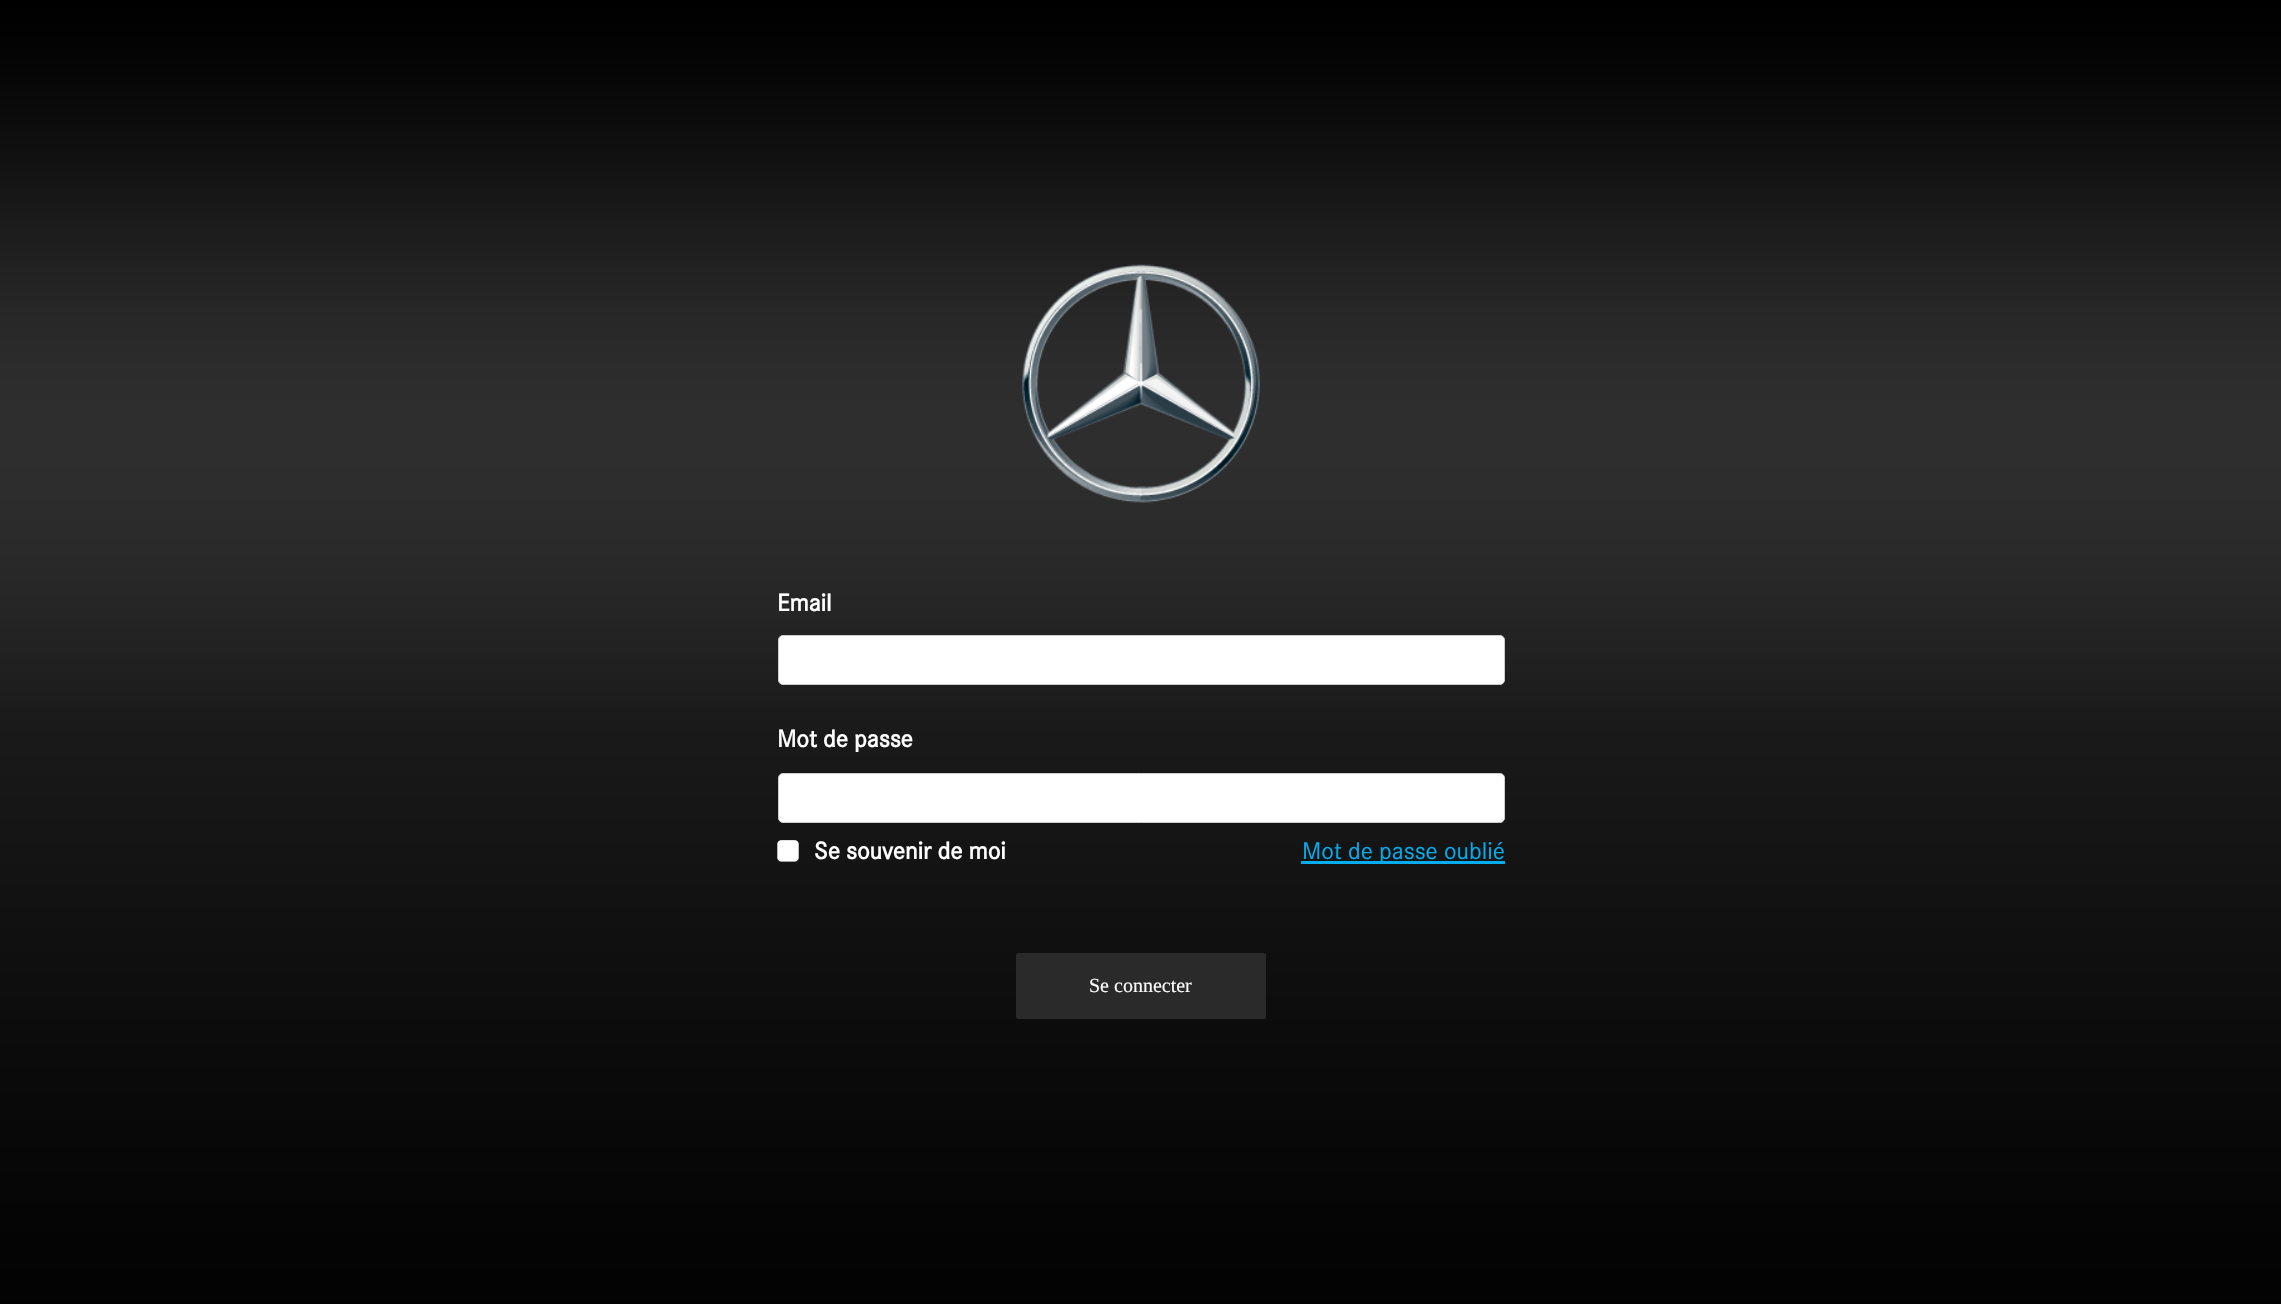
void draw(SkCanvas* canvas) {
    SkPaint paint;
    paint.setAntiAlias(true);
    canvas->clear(0xFFFFFFFF);
    canvas->drawImageRect(SkImages::DeferredFromEncodedData(SkData::MakeFromFileName("img1.png")), SkRect::MakeXYWH(0, 0, 2281, 1304), SkSamplingOptions());
    canvas->drawImageRect(SkImages::DeferredFromEncodedData(SkData::MakeFromFileName("img2.png")), SkRect::MakeXYWH(1022, 264, 238, 239), SkSamplingOptions());
    SkFont font1(fontMgr->matchFamilyStyle("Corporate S", SkFontStyle::Bold()), 25);
    font1.setSubpixel(true);
    paint.setColor(0xFFFFFFFF);
    canvas->drawString("Email", 777, 611, font1, paint);
    canvas->drawRoundRect(SkRect::MakeXYWH(778.5f, 635.5f, 726, 49), 4.5f, 4.5f, paint);
    paint.setStyle(SkPaint::kStroke_Style);
    paint.setStrokeWidth(1);
    paint.setColor(0xFFCCCCCC);
    canvas->drawRoundRect(SkRect::MakeXYWH(778.5f, 635.5f, 726, 49), 4.5f, 4.5f, paint);
    paint.setStyle(SkPaint::kFill_Style);
    paint.setColor(0xFFFFFFFF);
    canvas->drawString("Mot de passe", 777, 747, font1, paint);
    canvas->drawRoundRect(SkRect::MakeXYWH(778.5f, 773.5f, 726, 49), 4.5f, 4.5f, paint);
    paint.setStyle(SkPaint::kStroke_Style);
    paint.setColor(0xFFCCCCCC);
    canvas->drawRoundRect(SkRect::MakeXYWH(778.5f, 773.5f, 726, 49), 4.5f, 4.5f, paint);
    canvas->drawImageRect(SkImages::DeferredFromEncodedData(SkData::MakeFromFileName("img3.png")), SkRect::MakeXYWH(777, 840, 22, 22), SkSamplingOptions());
    paint.setStyle(SkPaint::kFill_Style);
    paint.setColor(0xFFFFFFFF);
    canvas->drawString("Se souvenir de moi", 814, 859, font1, paint);
    paint.setColor(0xFF00ADEF);
    canvas->drawRect(SkRect::MakeXYWH(1301, 861, 204, 3), paint);
    SkFont font2(fontMgr->matchFamilyStyle("Corporate S", SkFontStyle::Normal()), 25);
    font2.setSubpixel(true);
    canvas->drawString("Mot de passe oublié", 1302, 859, font2, paint);
    paint.setColor(0xFF2A2A2A);
    canvas->drawRoundRect(SkRect::MakeXYWH(1016, 953, 250, 66), 2.5f, 2.5f, paint);
    SkFont font3(fontMgr->matchFamilyStyle("Liberation Serif", SkFontStyle::Normal()), 20);
    font3.setSubpixel(true);
    paint.setColor(0xFFFFFFFF);
    canvas->drawString("Se connecter", 1089, 992, font3, paint);
}
